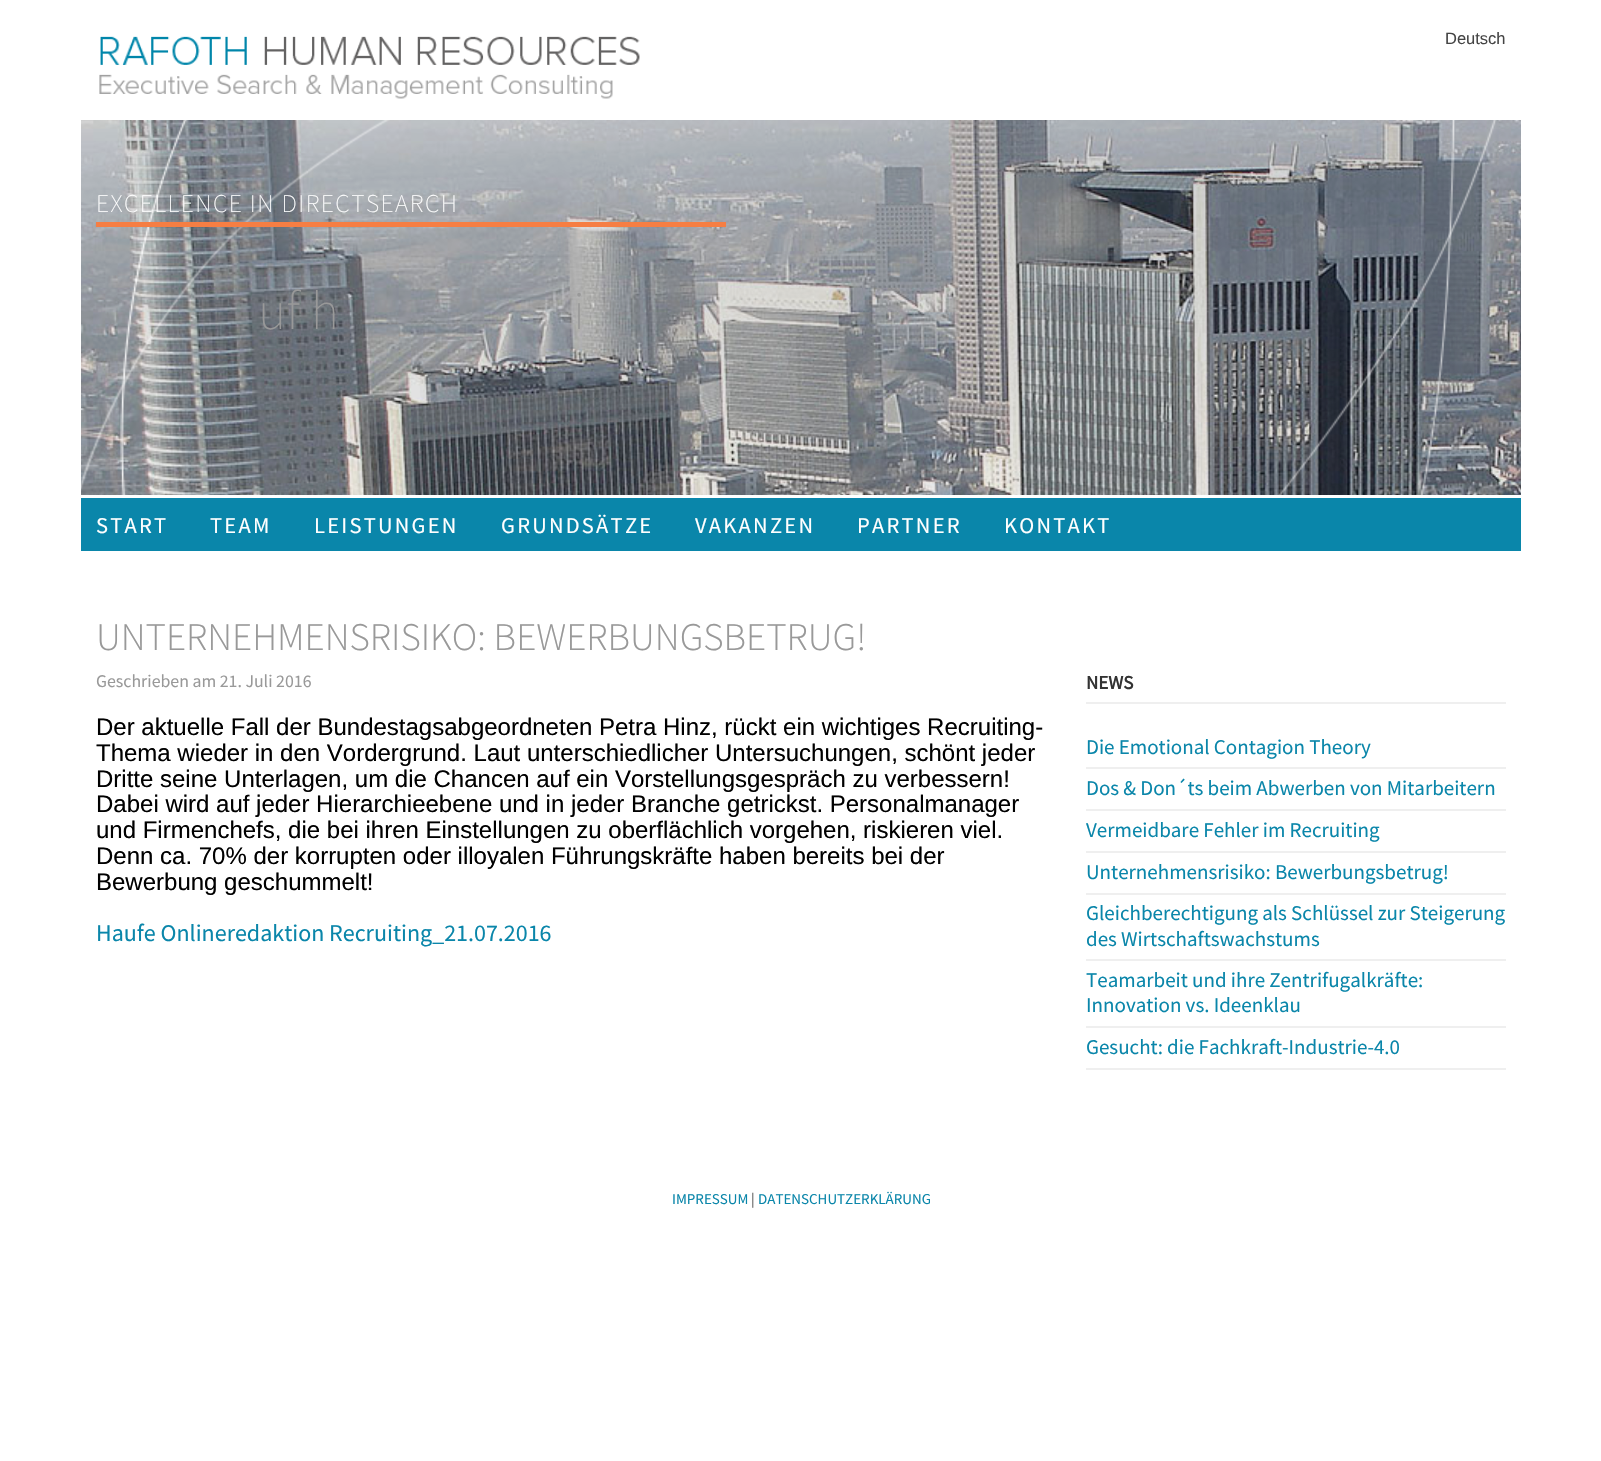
void draw(SkCanvas* canvas) {
    SkPaint paint;
    paint.setAntiAlias(true);
    auto spacedText = [&](const char* s, float x, float y, const SkFont& font, const SkPaint& ink, float letter, float word) {
        std::vector<SkGlyphID> glyphs(font.countText(s, strlen(s), SkTextEncoding::kUTF8));
        std::vector<float> xs(glyphs.size());
        font.textToGlyphs(s, strlen(s), SkTextEncoding::kUTF8, glyphs);
        font.getXPos(glyphs, xs, x);
        float extra = 0;
        for (size_t i = 0; i < glyphs.size(); i++) {
            xs[i] += extra;
            extra += letter + word * (glyphs[i] == font.unicharToGlyph(' '));
        }
        canvas->drawTextBlob(SkTextBlob::MakeFromPosHGlyphs(glyphs, xs, y, font), 0, 0, ink);
    };
    canvas->clear(0xFFFFFFFF);
    canvas->drawImageRect(SkImages::DeferredFromEncodedData(SkData::MakeFromFileName("img1.png")), SkRect::MakeXYWH(99, 36, 541, 63), SkSamplingOptions());
    SkFont font1(fontMgr->matchFamilyStyle("Liberation Sans", SkFontStyle::Normal()), 16.5f);
    font1.setSubpixel(true);
    paint.setColor(0xFF444444);
    canvas->drawString("Deutsch", 1445, 44, font1, paint);
    canvas->drawImageRect(SkImages::DeferredFromEncodedData(SkData::MakeFromFileName("img2.png")), SkRect::MakeXYWH(81, 120, 1440, 375), SkSamplingOptions());
    canvas->drawImageRect(SkImages::DeferredFromEncodedData(SkData::MakeFromFileName("img3.png")), SkRect::MakeXYWH(81, 120, 1440, 375), SkSamplingOptions());
    SkFont font2(fontMgr->matchFamilyStyle("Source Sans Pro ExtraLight", SkFontStyle(200, SkFontStyle::kNormal_Width, SkFontStyle::kUpright_Slant)), 25.5f);
    font2.setSubpixel(true);
    paint.setColor(0xFFFFFFFF);
    spacedText("EXCELLENCE IN DIRECTSEARCH", 96, 212, font2, paint, 1.5f, 0);
    canvas->drawImageRect(SkImages::DeferredFromEncodedData(SkData::MakeFromFileName("img5.png")), SkRect::MakeXYWH(120, 120, 67, 375), SkSamplingOptions());
    canvas->drawImageRect(SkImages::DeferredFromEncodedData(SkData::MakeFromFileName("img4.png")), SkRect::MakeXYWH(81, 120, 309, 371), SkSamplingOptions());
    canvas->drawImageRect(SkImages::DeferredFromEncodedData(SkData::MakeFromFileName("img7.png")), SkRect::MakeXYWH(1420, 120, 35, 375), SkSamplingOptions());
    canvas->drawImageRect(SkImages::DeferredFromEncodedData(SkData::MakeFromFileName("img6.png")), SkRect::MakeXYWH(1278, 120, 219, 375), SkSamplingOptions());
    paint.setColor(0xFFF67E43);
    canvas->drawRect(SkRect::MakeXYWH(96, 222, 630, 5), paint);
    SkFont font3(fontMgr->matchFamilyStyle("Source Sans Pro ExtraLight", SkFontStyle(200, SkFontStyle::kNormal_Width, SkFontStyle::kUpright_Slant)), 54);
    font3.setSubpixel(true);
    paint.setColor(0xFF999999);
    canvas->drawString("uf h", 258, 329, font3, paint);
    canvas->drawString("i", 573, 329, font3, paint);
    paint.setColor(0xFF0A86AA);
    canvas->drawRect(SkRect::MakeXYWH(81, 498, 1440, 53), paint);
    SkFont font4(fontMgr->matchFamilyStyle("Source Sans Pro", SkFontStyle::Normal()), 22.5f);
    font4.setSubpixel(true);
    paint.setColor(0xFFFFFFFF);
    spacedText("START", 96, 533, font4, paint, 2.25f, 0);
    spacedText("TEAM", 210, 533, font4, paint, 2.25f, 0);
    spacedText("LEISTUNGEN", 314, 533, font4, paint, 2.25f, 0);
    spacedText("GRUNDSÄTZE", 501, 533, font4, paint, 2.25f, 0);
    spacedText("VAKANZEN", 695, 533, font4, paint, 2.25f, 0);
    spacedText("PARTNER", 857, 533, font4, paint, 2.25f, 0);
    spacedText("KONTAKT", 1004, 533, font4, paint, 2.25f, 0);
    SkFont font5(fontMgr->matchFamilyStyle("Source Sans Pro", SkFontStyle(300, SkFontStyle::kNormal_Width, SkFontStyle::kUpright_Slant)), 39);
    font5.setSubpixel(true);
    paint.setColor(0xFF999999);
    canvas->drawString("UNTERNEHMENSRISIKO: BEWERBUNGSBETRUG!", 96, 650, font5, paint);
    SkFont font6(fontMgr->matchFamilyStyle("Source Sans Pro", SkFontStyle::Normal()), 17.8f);
    font6.setSubpixel(true);
    canvas->drawString("Geschrieben am 21. Juli 2016", 96, 687, font6, paint);
    SkFont font7(fontMgr->matchFamilyStyle("Liberation Sans", SkFontStyle::Normal()), 24);
    font7.setSubpixel(true);
    paint.setColor(0xFF000000);
    canvas->drawString("Der aktuelle Fall der Bundestagsabgeordneten Petra Hinz, rückt ein wichtiges Recruiting-", 96, 735, font7, paint);
    canvas->drawString("Thema wieder in den Vordergrund. Laut unterschiedlicher Untersuchungen, schönt jeder", 96, 761, font7, paint);
    canvas->drawString("Dritte seine Unterlagen, um die Chancen auf ein Vorstellungsgespräch zu verbessern!", 96, 787, font7, paint);
    canvas->drawString("Dabei wird auf jeder Hierarchieebene und in jeder Branche getrickst. Personalmanager", 96, 812, font7, paint);
    canvas->drawString("und Firmenchefs, die bei ihren Einstellungen zu oberflächlich vorgehen, riskieren viel.", 96, 838, font7, paint);
    canvas->drawString("Denn ca. 70% der korrupten oder illoyalen Führungskräfte haben bereits bei der", 96, 864, font7, paint);
    canvas->drawString("Bewerbung geschummelt!", 96, 890, font7, paint);
    SkFont font8(fontMgr->matchFamilyStyle("Source Sans Pro", SkFontStyle::Normal()), 24);
    font8.setSubpixel(true);
    paint.setColor(0xFF0A86AA);
    canvas->drawString("Haufe Onlineredaktion Recruiting_21.07.2016", 96, 941, font8, paint);
    paint.setColor(0xFFEFEFEF);
    canvas->drawRect(SkRect::MakeXYWH(1086, 702, 420, 2), paint);
    SkFont font9(fontMgr->matchFamilyStyle("Source Sans Pro", SkFontStyle::Bold()), 19);
    font9.setSubpixel(true);
    paint.setColor(0xFF333333);
    canvas->drawString("NEWS", 1086, 689, font9, paint);
    paint.setColor(0xFFEFEFEF);
    canvas->drawRect(SkRect::MakeXYWH(1086, 767, 420, 2), paint);
    SkFont font10(fontMgr->matchFamilyStyle("Source Sans Pro", SkFontStyle::Normal()), 21);
    font10.setSubpixel(true);
    paint.setColor(0xFF0A86AA);
    canvas->drawString("Die Emotional Contagion Theory", 1086, 754, font10, paint);
    paint.setColor(0xFFEFEFEF);
    canvas->drawRect(SkRect::MakeXYWH(1086, 809, 420, 2), paint);
    paint.setColor(0xFF0A86AA);
    canvas->drawString("Dos & Don´ts beim Abwerben von Mitarbeitern", 1086, 795, font10, paint);
    paint.setColor(0xFFEFEFEF);
    canvas->drawRect(SkRect::MakeXYWH(1086, 851, 420, 2), paint);
    paint.setColor(0xFF0A86AA);
    canvas->drawString("Vermeidbare Fehler im Recruiting", 1086, 837, font10, paint);
    paint.setColor(0xFFEFEFEF);
    canvas->drawRect(SkRect::MakeXYWH(1086, 893, 420, 2), paint);
    paint.setColor(0xFF0A86AA);
    canvas->drawString("Unternehmensrisiko: Bewerbungsbetrug!", 1086, 879, font10, paint);
    paint.setColor(0xFFEFEFEF);
    canvas->drawRect(SkRect::MakeXYWH(1086, 959, 420, 2), paint);
    paint.setColor(0xFF0A86AA);
    canvas->drawString("Gleichberechtigung als Schlüssel zur Steigerung", 1086, 920, font10, paint);
    canvas->drawString("des Wirtschaftswachstums", 1086, 946, font10, paint);
    paint.setColor(0xFFEFEFEF);
    canvas->drawRect(SkRect::MakeXYWH(1086, 1026, 420, 2), paint);
    paint.setColor(0xFF0A86AA);
    canvas->drawString("Teamarbeit und ihre Zentrifugalkräfte:", 1086, 987, font10, paint);
    canvas->drawString("Innovation vs. Ideenklau", 1086, 1012, font10, paint);
    paint.setColor(0xFFEFEFEF);
    canvas->drawRect(SkRect::MakeXYWH(1086, 1068, 420, 2), paint);
    paint.setColor(0xFF0A86AA);
    canvas->drawString("Gesucht: die Fachkraft-Industrie-4.0", 1086, 1054, font10, paint);
    SkFont font11(fontMgr->matchFamilyStyle("Source Sans Pro", SkFontStyle::Normal()), 15);
    font11.setSubpixel(true);
    canvas->drawString("IMPRESSUM", 672, 1204, font11, paint);
    paint.setColor(0xFF585858);
    canvas->drawString("|", 751, 1204, font11, paint);
    paint.setColor(0xFF0A86AA);
    canvas->drawString("DATENSCHUTZERKLÄRUNG", 758, 1204, font11, paint);
}
